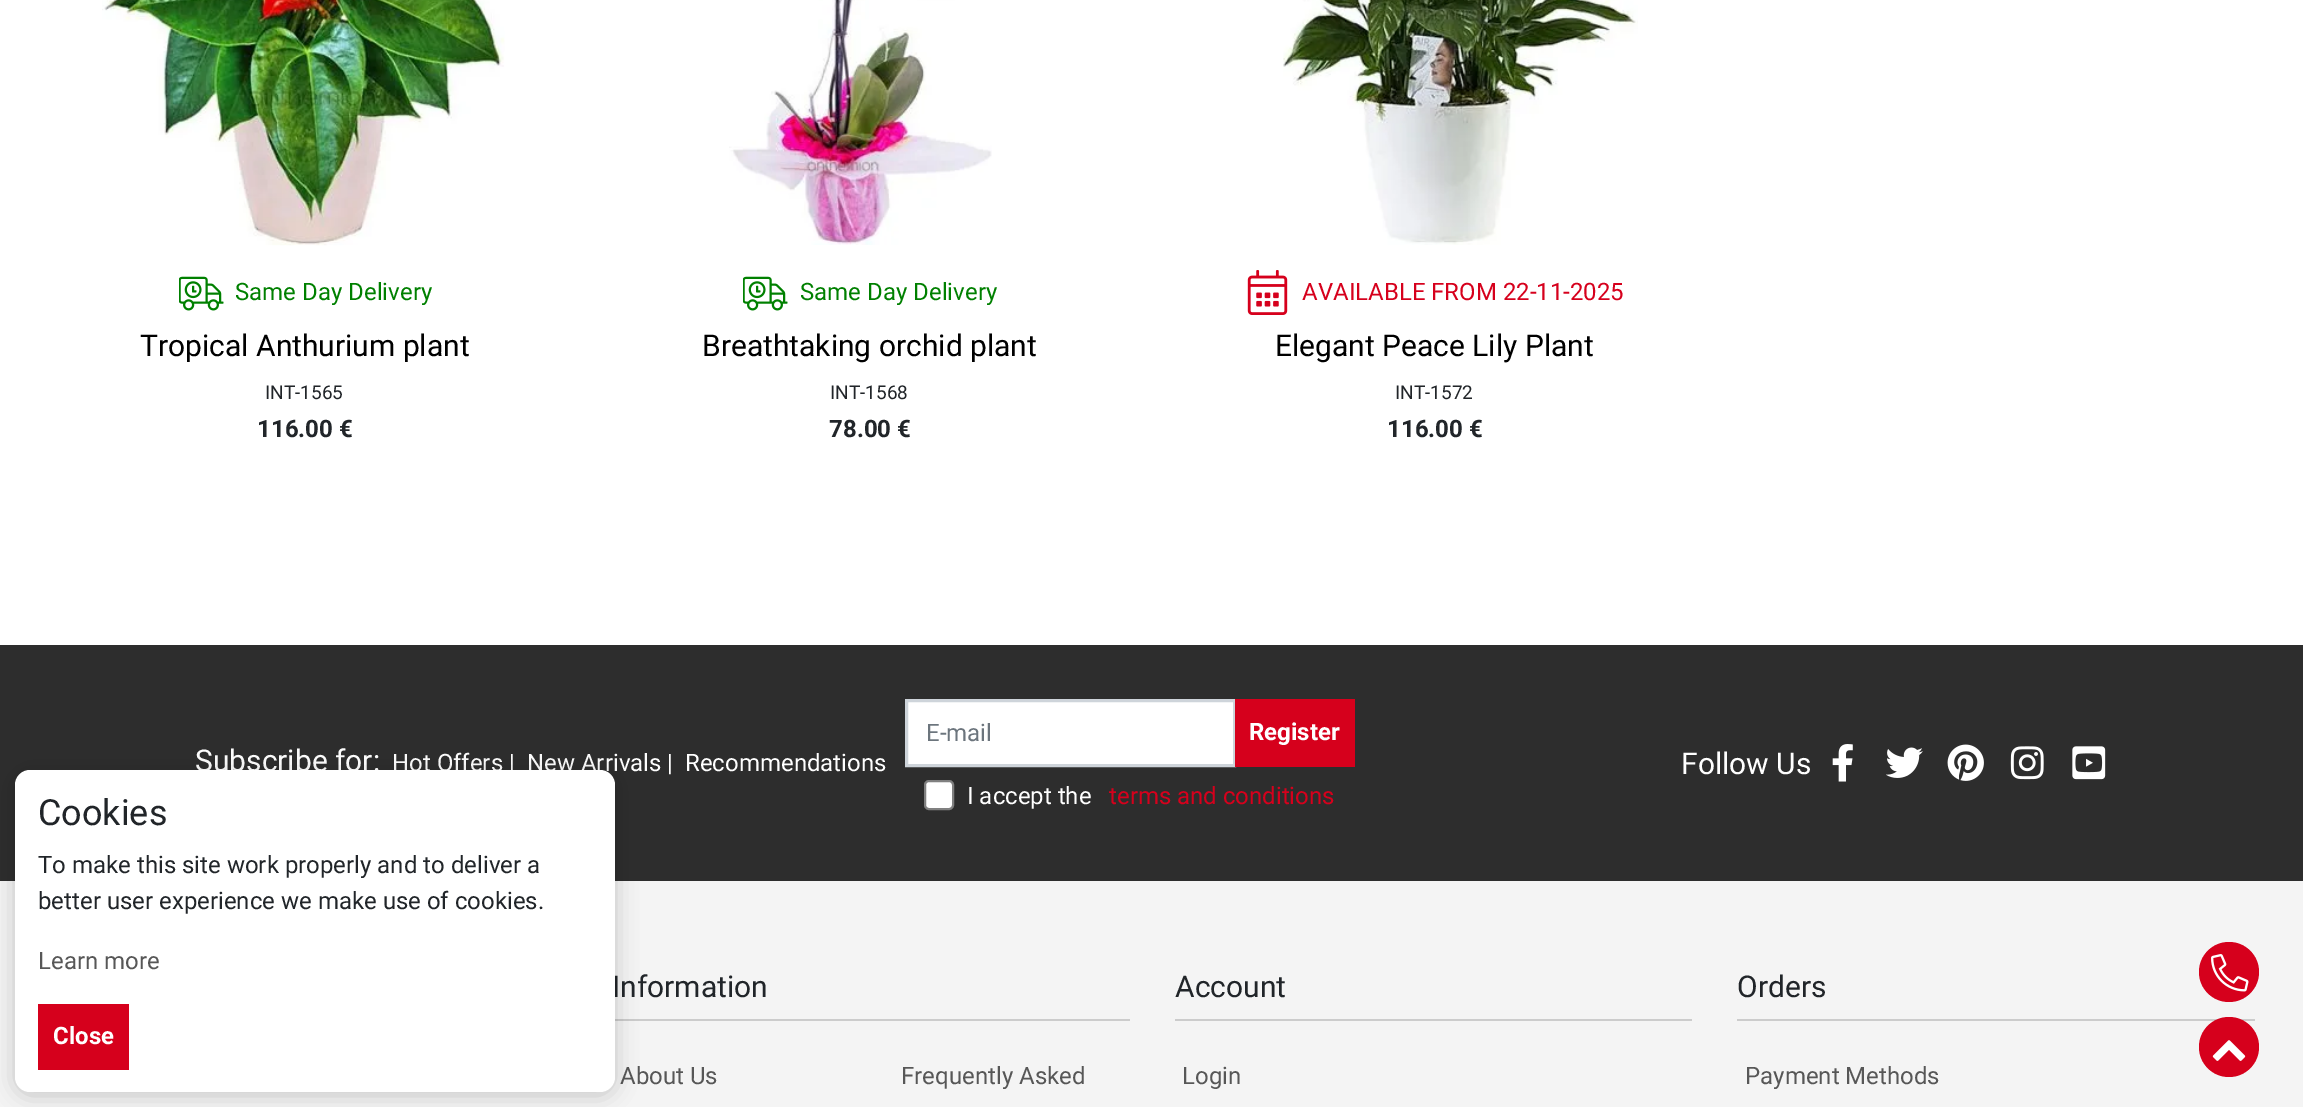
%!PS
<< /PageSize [2303 1107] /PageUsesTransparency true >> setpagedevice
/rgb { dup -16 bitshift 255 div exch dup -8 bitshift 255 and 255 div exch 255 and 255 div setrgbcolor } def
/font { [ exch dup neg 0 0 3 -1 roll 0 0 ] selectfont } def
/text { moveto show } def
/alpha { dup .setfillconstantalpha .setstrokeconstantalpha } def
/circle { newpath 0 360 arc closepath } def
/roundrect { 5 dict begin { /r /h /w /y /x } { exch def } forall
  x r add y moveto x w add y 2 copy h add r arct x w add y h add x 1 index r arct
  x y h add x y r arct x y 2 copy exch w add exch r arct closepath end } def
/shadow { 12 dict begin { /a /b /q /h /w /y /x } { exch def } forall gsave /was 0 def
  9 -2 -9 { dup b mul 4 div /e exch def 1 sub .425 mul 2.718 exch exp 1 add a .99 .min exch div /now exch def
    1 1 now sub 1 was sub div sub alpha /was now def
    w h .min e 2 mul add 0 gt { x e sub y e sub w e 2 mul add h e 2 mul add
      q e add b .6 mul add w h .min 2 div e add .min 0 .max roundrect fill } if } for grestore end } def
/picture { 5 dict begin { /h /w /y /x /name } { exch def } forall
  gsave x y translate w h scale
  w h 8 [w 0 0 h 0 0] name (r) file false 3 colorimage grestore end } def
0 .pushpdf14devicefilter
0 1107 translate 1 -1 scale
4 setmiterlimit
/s1 { /Roboto-Regular 24 font 16#008000 rgb } def
/s2 { /Roboto-Regular 30 font 16#000000 rgb } def
/s3 { /Roboto-Regular 19 font 16#212529 rgb } def
/s4 { /Roboto-Bold 24 font 16#212529 rgb } def
/s5 { /Roboto-Regular 24 font 16#D6001C rgb } def
/s6 { /Roboto-Regular 30 font 16#FFFFFF rgb } def
/s7 { /Roboto-Regular 24 font 16#FFFFFF rgb } def
/s8 { /Roboto-Regular 24 font 16#6C757D rgb } def
/s9 { /Roboto-Bold 24 font 16#FFFFFF rgb } def
/s10 { /Roboto-Regular 30 font 16#212529 rgb } def
/s11 { /Roboto-Regular 24 font 16#575757 rgb } def
/s12 { /Roboto-Regular 36 font 16#212529 rgb } def
/s13 { /Roboto-Regular 24 font 16#212529 rgb } def
16#FFFFFF rgb
0 0 2303 1107 rectfill
(pic1.raw) 102 0 403 246 picture
(pic2.raw) 179 276 45 35 picture
s1
(Same Day Delivery) 235 300 text
s2
(Tropical Anthurium plant) 140 356 text
s3
(INT-1565) 265 399 text
s4
(116.00 €) 257 437 text
(pic3.raw) 729 0 263 245 picture
(pic2.raw) 743 276 45 35 picture
s1
(Same Day Delivery) 800 300 text
s2
(Breathtaking orchid plant) 702 356 text
s3
(INT-1568) 830 399 text
s4
(78.00 €) 829 437 text
(pic4.raw) 1283 0 355 245 picture
(pic5.raw) 1247 270 41 45 picture
s5
(AVAILABLE FROM 22-11-2025) 1302 300 text
s2
(Elegant Peace Lily Plant) 1275 356 text
s3
(INT-1572) 1395 399 text
s4
(116.00 €) 1387 437 text
16#2D2D2D rgb
0 645 2303 236 rectfill
s6
(Subscribe for:) 195 771 text
s7
(Hot Offers |) 392 771 text
(New Arrivals |) 527 771 text
(Recommendations) 685 771 text
906.5 700.5 moveto 1234.5 700.5 lineto 1234.5 765.5 lineto 906.5 765.5 lineto closepath gsave fill grestore
16#CED4DA rgb
3 setlinewidth
stroke
s8
(E-mail) 926 741 text
16#D6001C rgb
1235 699 120 68 rectfill
s9
(Register) 1249 740 text
925 781 28 28 4 roundrect gsave fill grestore
16#808080 rgb
2 setlinewidth
stroke
s7
(I accept the) 967 804 text
s5
(terms and conditions) 1109 804 text
s6
(Follow Us) 1681 774 text
(pic6.raw) 1832 744 21 38 picture
(pic7.raw) 1886 747 37 31 picture
(pic8.raw) 1947 744 37 37 picture
(pic9.raw) 2010 746 34 34 picture
(pic10.raw) 2072 746 34 34 picture
16#F4F4F4 rgb
0 881 2303 226 rectfill
16#CCCCCC rgb
612 1019 518 2 rectfill
s10
(Information) 612 997 text
s11
(About Us) 620 1084 text
(Frequently Asked) 901 1084 text
16#CCCCCC rgb
1175 1019 517 2 rectfill
s10
(Account) 1175 997 text
s11
(Login) 1182 1084 text
16#CCCCCC rgb
1737 1019 518 2 rectfill
s10
(Orders) 1737 997 text
s11
(Payment Methods) 1745 1084 text
16#000000 rgb
15 773 600 322 15 11 0.2 shadow
16#FFFFFF rgb
15 770 600 322 15 roundrect fill
s12
(Cookies) 38 825 text
s13
(To make this site work properly and to deliver a) 38 873 text
(better user experience we make use of cookies.) 38 909 text
s11
(Learn more) 38 969 text
16#D6001C rgb
38 1004 91 66 rectfill
s9
(Close) 53 1044 text
16#D6001C rgb
2229 972 30 circle fill
(pic11.raw) 2211 954 38 38 picture
2229 1047 30 circle fill
(pic12.raw) 2212 1040 34 21 picture
.poppdf14devicefilter showpage
